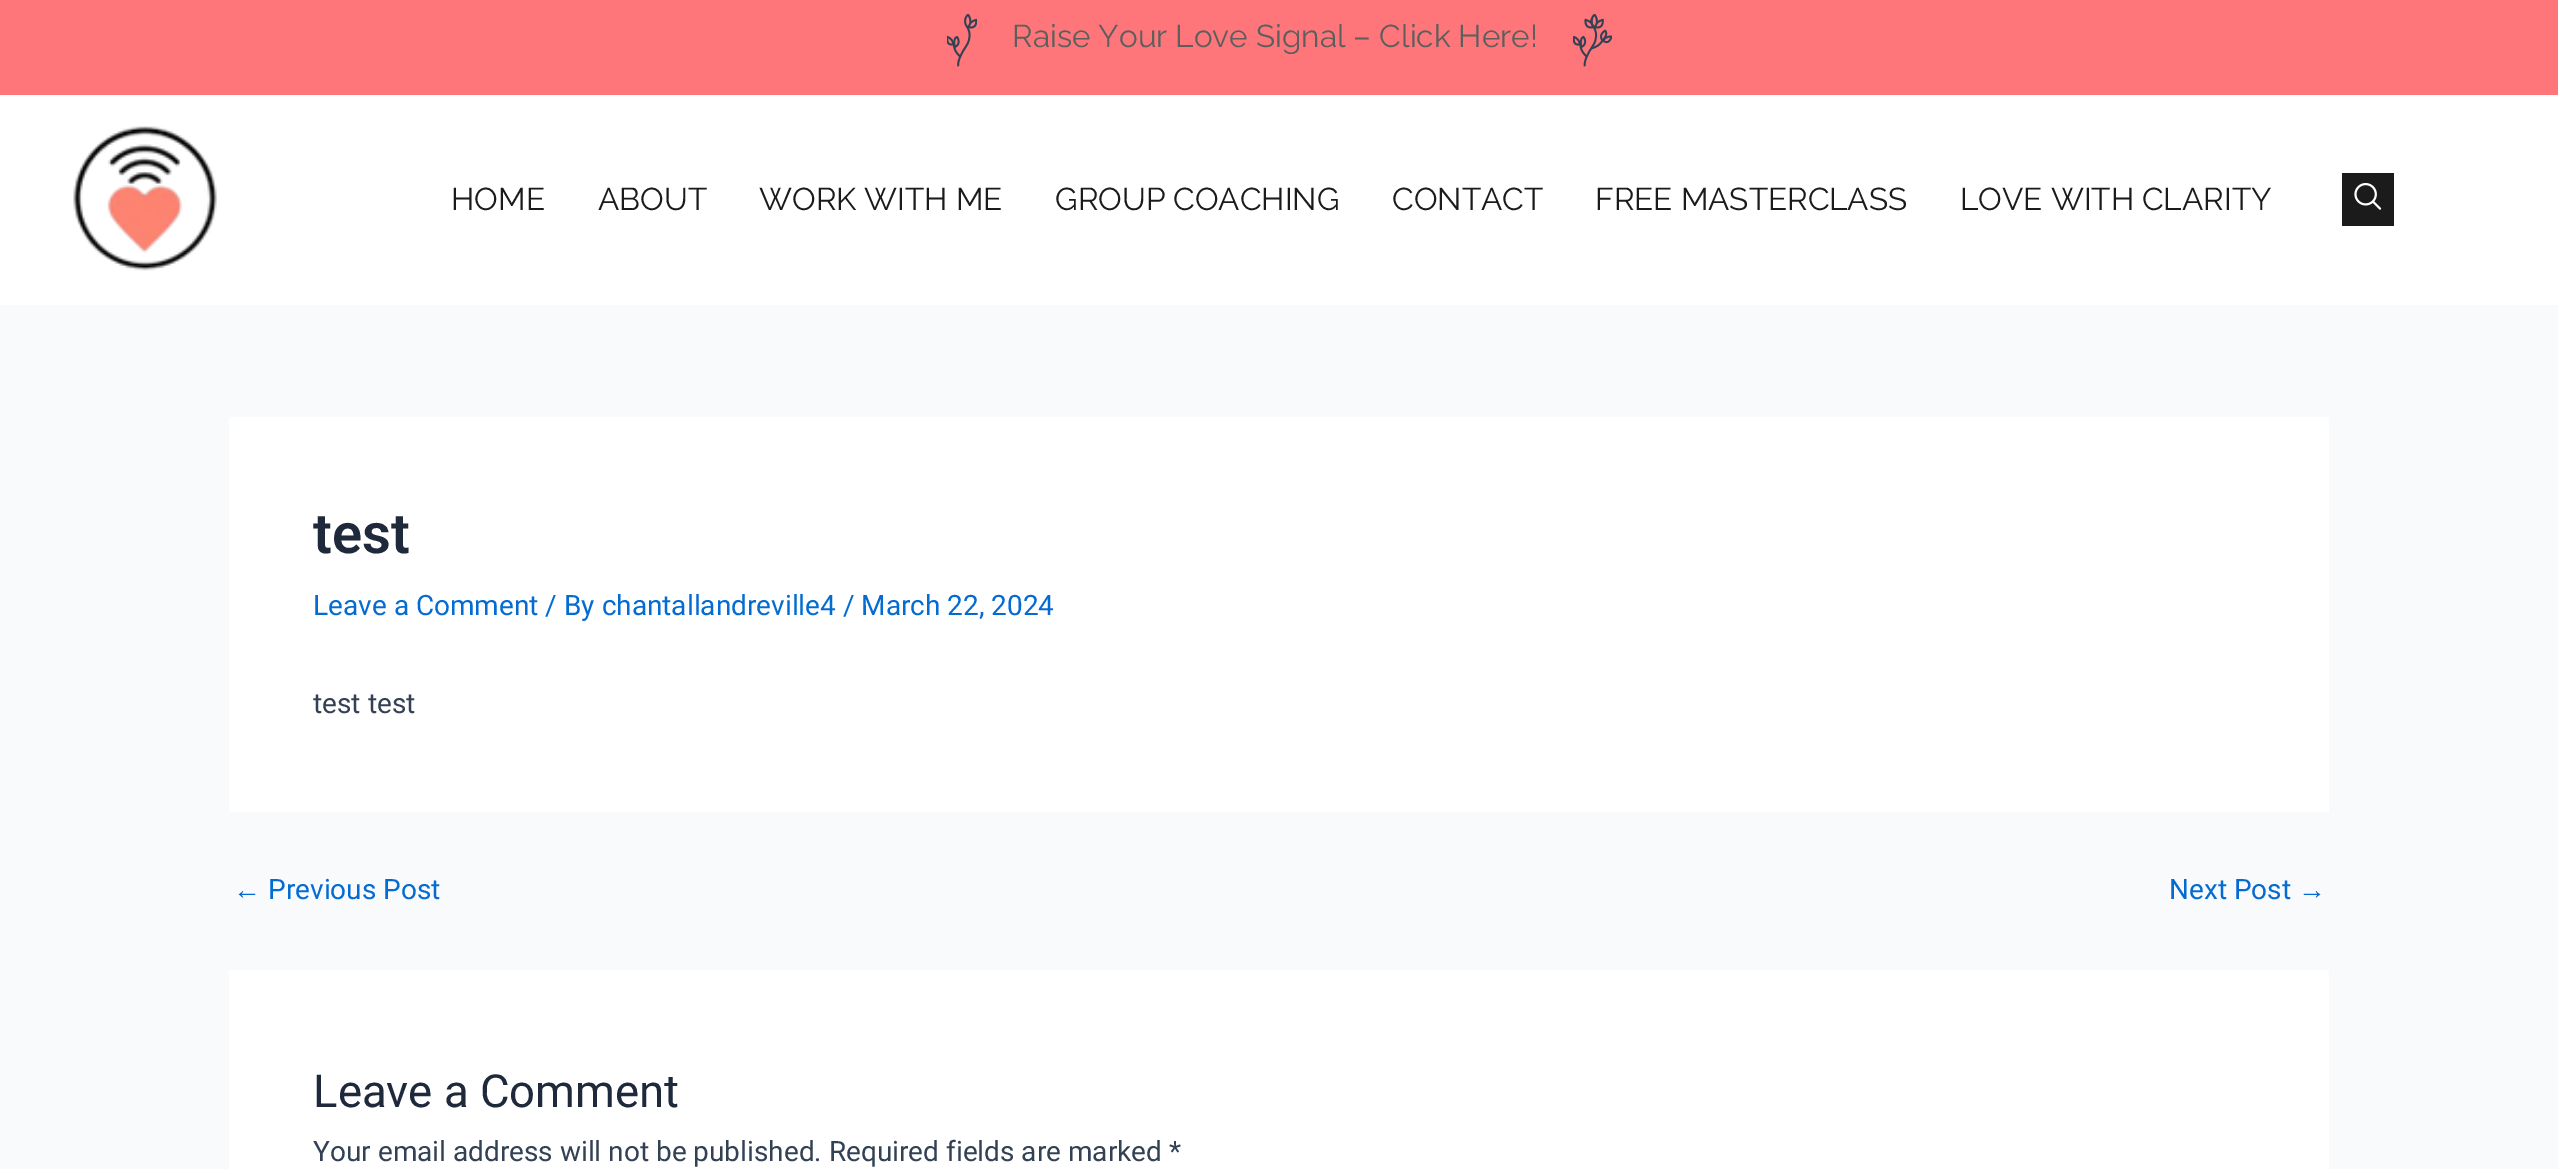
%!PS
<< /PageSize [2558 1169] >> setpagedevice
/rgb { dup -16 bitshift 255 div exch dup -8 bitshift 255 and 255 div exch 255 and 255 div setrgbcolor } def
/font { [ exch dup neg 0 0 3 -1 roll 0 0 ] selectfont } def
/text { moveto show } def
/picture { 5 dict begin { /h /w /y /x /name } { exch def } forall
  gsave x y translate w h scale
  w h 8 [w 0 0 h 0 0] name (r) file false 3 colorimage grestore end } def
0 1169 translate 1 -1 scale
4 setmiterlimit
/s1 { /Raleway-Regular 31.5 font 16#5E5E5E rgb } def
/s2 { /Raleway-Regular 31.5 font 16#1B1B1B rgb } def
/s3 { /Roboto-SemiBold 56 font 16#1E293B rgb } def
/s4 { /Roboto-Regular 28 font 16#046BD2 rgb } def
/s5 { /Roboto-Regular 28 font 16#334155 rgb } def
/s6 { /LiberationSans-Regular 28 font 16#046BD2 rgb } def
/s7 { /Roboto-Regular 45.5 font 16#1E293B rgb } def
16#F9FAFB rgb
0 0 2558 1169 rectfill
16#FF767A rgb
0 0 2558 95 rectfill
(pic1.raw) 947 14 30 53 picture
s1
(Raise Your Love Signal – Click Here!) 1012 47 text
(pic2.raw) 1573 14 39 53 picture
16#FFFFFF rgb
0 95 2558 210 rectfill
(pic3.raw) 73 126 144 145 picture
s2
(HOME) 451 210 text
(ABOUT) 598 210 text
(WORK WITH ME) 759 210 text
(GROUP COACHING) 1055 210 text
(CONTACT) 1392 210 text
(FREE MASTERCLASS) 1595 210 text
(LOVE WITH CLARITY) 1960 210 text
2342 173 52 53 rectfill
(pic4.raw) 2354 183 28 27 picture
16#FFFFFF rgb
229 417 2100 395 rectfill
s3
(test) 313 553 text
s4
(Leave a Comment / By chantallandreville4 / March 22, 2024) 313 615 text
s5
(test test) 313 713 text
s6
(←) 233 899 text
s4
(Previous Post) 268 899 text
(Next Post) 2169 899 text
s6
(→) 2298 899 text
16#FFFFFF rgb
229 970 2100 199 rectfill
s7
(Leave a Comment) 313 1107 text
s5
(Your email address will not be published. Required fields are marked *) 313 1161 text
showpage
